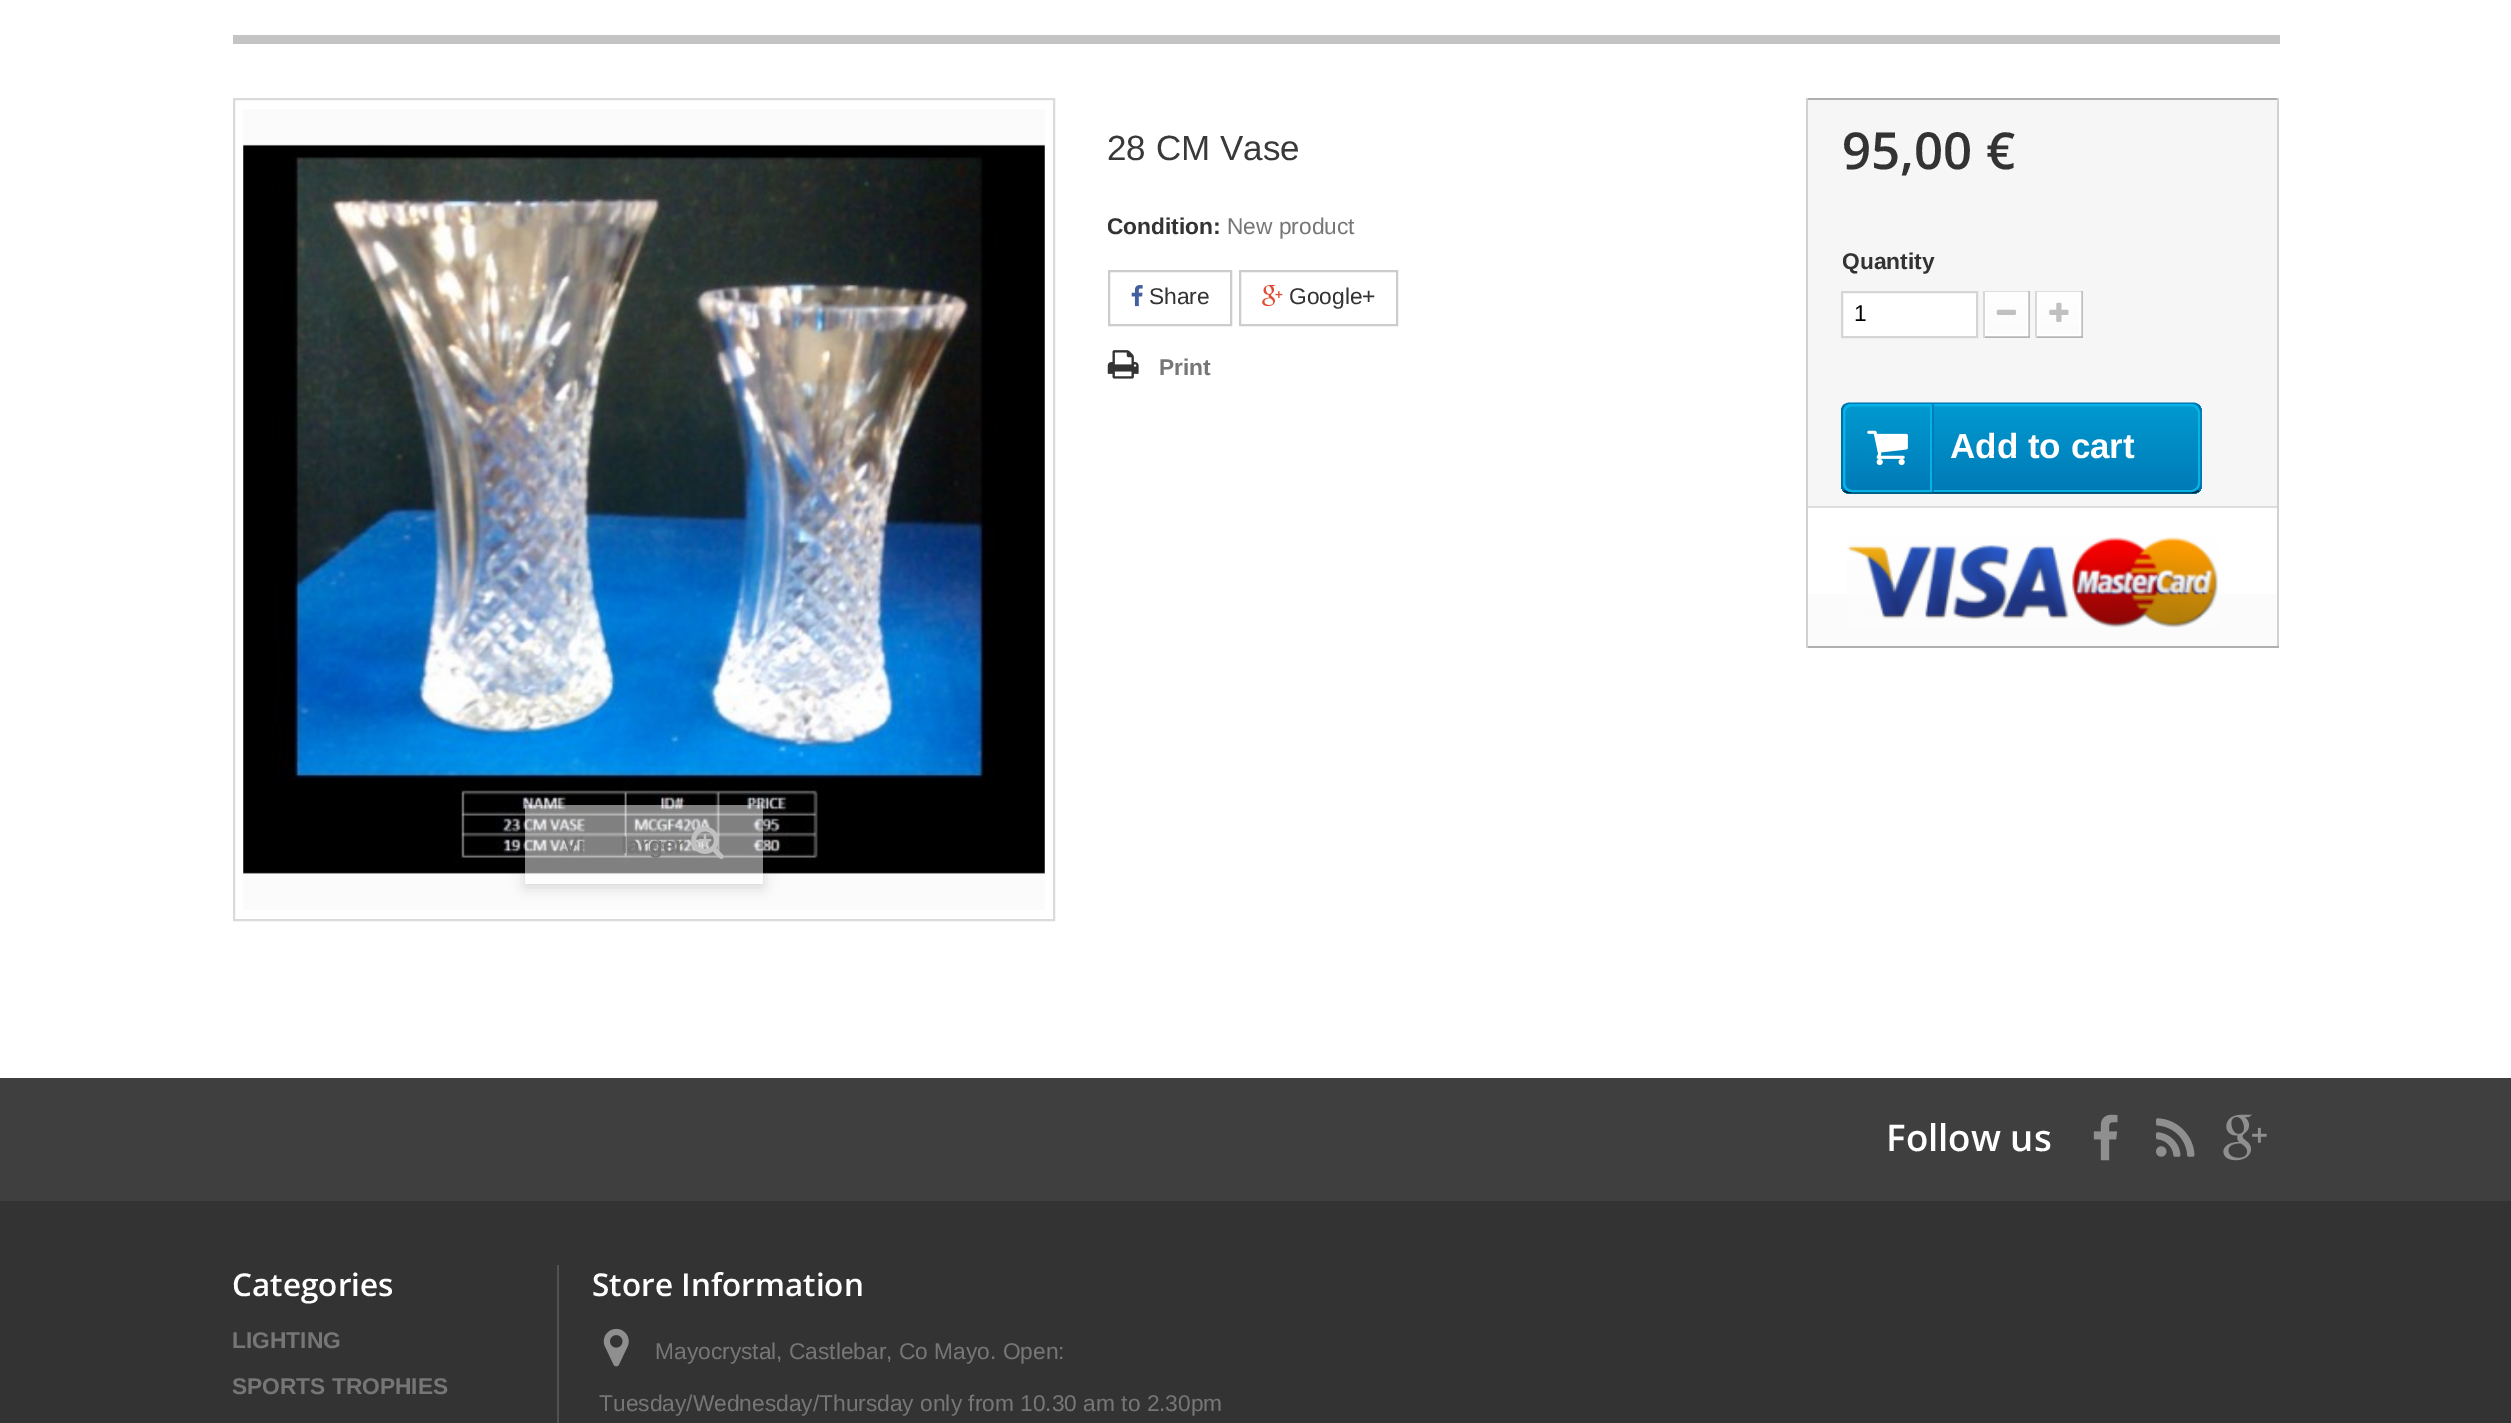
%!PS
<< /PageSize [2511 1423] /PageUsesTransparency true >> setpagedevice
/rgb { dup -16 bitshift 255 div exch dup -8 bitshift 255 and 255 div exch 255 and 255 div setrgbcolor } def
/font { [ exch dup neg 0 0 3 -1 roll 0 0 ] selectfont } def
/text { moveto show } def
/alpha { dup .setfillconstantalpha .setstrokeconstantalpha } def
/roundrect { 5 dict begin { /r /h /w /y /x } { exch def } forall
  x r add y moveto x w add y 2 copy h add r arct x w add y h add x 1 index r arct
  x y h add x y r arct x y 2 copy exch w add exch r arct closepath end } def
/shadow { 12 dict begin { /a /b /q /h /w /y /x } { exch def } forall gsave /was 0 def
  9 -2 -9 { dup b mul 4 div /e exch def 1 sub .425 mul 2.718 exch exp 1 add a .99 .min exch div /now exch def
    1 1 now sub 1 was sub div sub alpha /was now def
    w h .min e 2 mul add 0 gt { x e sub y e sub w e 2 mul add h e 2 mul add
      q e add b .6 mul add w h .min 2 div e add .min 0 .max roundrect fill } if } for grestore end } def
/picture { 5 dict begin { /h /w /y /x /name } { exch def } forall
  gsave x y translate w h scale
  w h 8 [w 0 0 h 0 0] name (r) file false 3 colorimage grestore end } def
0 .pushpdf14devicefilter
0 1423 translate 1 -1 scale
4 setmiterlimit
/s1 { /LiberationSans-Regular 35 font 16#3A3939 rgb } def
/s2 { /LiberationSans-Bold 22.75 font 16#333333 rgb } def
/s3 { /LiberationSans-Regular 22.75 font 16#777676 rgb } def
/s4 { /LiberationSans-Regular 22.75 font 16#333333 rgb } def
/s5 { /LiberationSans-Bold 22.75 font 16#777676 rgb } def
/s6 { /OpenSans-SemiBold 51 font 16#333333 rgb } def
/s7 { /LiberationSans-Regular 22.75 font 16#000000 rgb } def
/s8 { /LiberationSans-Bold 35 font 16#FFFFFF rgb } def
/s9 { /OpenSans-SemiBold 36.75 font 16#FFFFFF rgb } def
/s10 { /OpenSans-SemiBold 31.5 font 16#FFFFFF rgb } def
16#FFFFFF rgb
0 0 2511 1423 rectfill
16#C4C4C4 rgb
233 35 2047 9 rectfill
s1
(28 CM Vase) 1107 160 text
s2
(Condition:) 1107 234 text
s3
(New product) 1227 234 text
16#CCCCCC rgb
2 setlinewidth
1109 271 122 54 rectstroke
(pic1.raw) 1131 285 12 22 picture
s4
(Share) 1149 304 text
16#CCCCCC rgb
1240 271 157 54 rectstroke
(pic2.raw) 1262 285 21 22 picture
s4
(Google+) 1289 304 text
(pic3.raw) 1107 350 32 29 picture
s5
(Print) 1159 375 text
16#F6F6F6 rgb
1808 100 469 406 rectfill
16#B0AFAF rgb
1806 98 473 2 rectfill
16#D2D0D0 rgb
2277 98 2 550 rectfill
16#B0AFAF rgb
1806 646 473 2 rectfill
16#D2D0D0 rgb
1806 98 2 550 rectfill
s6
(95,00 €) 1842 169 text
s2
(Quantity) 1842 269 text
16#FFFFFF rgb
1842 292 moveto 1977 292 lineto 1977 337 lineto 1842 337 lineto closepath gsave fill grestore
16#D6D4D4 rgb
stroke
s7
(1) 1854 321 text
16#DEDCDC rgb
1983 291 47 1 rectfill
16#C1BFBF rgb
2028 291 2 47 rectfill
16#B5B4B4 rgb
1983 336 47 2 rectfill
16#DAD8D8 rgb
1983 291 2 47 rectfill
gsave 1987 294 moveto 2026 294 lineto 2026 334 lineto 1987 334 lineto closepath clip newpath
<< /ShadingType 2 /ColorSpace /DeviceRGB /Coords [2006 294 2006 334] /Extend [true true] /Function << /FunctionType 2 /Domain [0 1] /C0 [1 1 1] /C1 [0.984 0.984 0.984] /N 1 >> >> shfill grestore
16#FFFFFF rgb
1986 293 41 42 rectstroke
(pic4.raw) 1996 309 20 6 picture
16#DEDCDC rgb
2035 291 48 1 rectfill
16#C1BFBF rgb
2081 291 2 47 rectfill
16#B5B4B4 rgb
2035 336 48 2 rectfill
16#DAD8D8 rgb
2035 291 2 47 rectfill
gsave 2039 294 moveto 2079 294 lineto 2079 334 lineto 2039 334 lineto closepath clip newpath
<< /ShadingType 2 /ColorSpace /DeviceRGB /Coords [2059 294 2059 334] /Extend [true true] /Function << /FunctionType 2 /Domain [0 1] /C0 [1 1 1] /C1 [0.984 0.984 0.984] /N 1 >> >> shfill grestore
16#FFFFFF rgb
2038 293 42 42 rectstroke
(pic5.raw) 2049 302 20 20 picture
gsave
1841 403 361 91 9 roundrect clip newpath
gsave 1841 404 moveto 2202 404 lineto 2202 492 lineto 1841 492 lineto closepath clip newpath
<< /ShadingType 2 /ColorSpace /DeviceRGB /Coords [2021 404 2021 492] /Extend [true true] /Function << /FunctionType 2 /Domain [0 1] /C0 [0 0.604 0.816] /C1 [0 0.478 0.718] /N 1 >> >> shfill grestore
gsave 1841 492 moveto 2202 492 lineto 2202 494 lineto 1841 494 lineto closepath clip newpath
<< /ShadingType 2 /ColorSpace /DeviceRGB /Coords [2021 492 2021 579] /Extend [true true] /Function << /FunctionType 2 /Domain [0 1] /C0 [0 0.604 0.816] /C1 [0 0.478 0.718] /N 1 >> >> shfill grestore
grestore
16#0079B6 rgb
1.8 setlinewidth
1844 405.5 moveto 1845.5 404 1847.5 403.5 1850 403.5 curveto 2193 403.5 lineto 2195 403.5 2197 404 2198.5 405.5 curveto stroke
16#006FA8 rgb
2198.5 405.5 moveto 2200 407 2200.5 409 2200.5 411 curveto 2200.5 485 lineto 2200.5 487 2200 489 2198.5 490.5 curveto stroke
16#012740 rgb
2198.5 490.5 moveto 2197 492 2195 492.5 2193 492.5 curveto 1850 492.5 lineto 1847.5 492.5 1845.5 492 1844 490.5 curveto stroke
16#006FA8 rgb
1844 490.5 moveto 1842.5 489 1842 487 1842 485 curveto 1842 411 lineto 1842 409 1842.5 407 1844 405.5 curveto stroke
16#06B2E6 rgb
2 setlinewidth
1844 405 355 86 8 roundrect stroke
1852 405 moveto 1931 405 lineto 1931 491 lineto 1852 491 lineto 1847.5 491 1844 487.5 1844 483 curveto 1844 413 lineto 1844 408.5 1847.5 405 1852 405 curveto closepath stroke
(pic6.raw) 1867 430 41 36 picture
(pic7.raw) 1932 404 2 88 picture
s8
(Add to cart) 1950 458 text
gsave 1808 594 moveto 2277 594 lineto 2277 646 lineto 1808 646 lineto closepath clip newpath
<< /ShadingType 2 /ColorSpace /DeviceRGB /Coords [2042 508 2042 646] /Extend [true true] /Function << /FunctionType 2 /Domain [0 1] /C0 [1 1 1] /C1 [0.984 0.984 0.984] /N 1 >> >> shfill grestore
16#DFDEDE rgb
1808 506 469 2 rectfill
(pic8.raw) 1847 537 371 91 picture
16#DBDBDB rgb
234 99 820 821 rectstroke
16#FBFBFB rgb
243 109 802 801 rectfill
(pic9.raw) 243 144 802 730 picture
gsave
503 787 moveto 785 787 lineto 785 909 lineto 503 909 lineto closepath 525 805 moveto 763 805 lineto 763 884 lineto 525 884 lineto closepath eoclip newpath
16#000000 rgb
525 809 238 78 0 7 0.16 shadow
grestore
0.5 alpha
16#FFFFFF rgb
525 805 238 79 rectfill
1 alpha
s5
(Vi) 563 853 text
(larger) 621 853 text
(pic10.raw) 691 826 33 33 picture
16#333333 rgb
0 1201 2511 222 rectfill
16#3F3F3F rgb
0 1078 2511 123 rectfill
s9
(Follow us) 1886 1151 text
(pic11.raw) 2093 1114 25 47 picture
(pic12.raw) 2156 1118 39 39 picture
(pic13.raw) 2223 1114 44 47 picture
s10
(Categories) 232 1296 text
s5
(LIGHTING) 232 1348 text
(SPORTS TROPHIES) 232 1394 text
16#515151 rgb
557 1265 2 158 rectfill
s10
(Store Information) 592 1296 text
(pic14.raw) 603 1328 26 39 picture
s3
(Mayocrystal, Castlebar, Co Mayo. Open:) 655 1359 text
(Tuesday/Wednesday/Thursday only from 10.30 am to 2.30pm) 599 1411 text
.poppdf14devicefilter showpage
